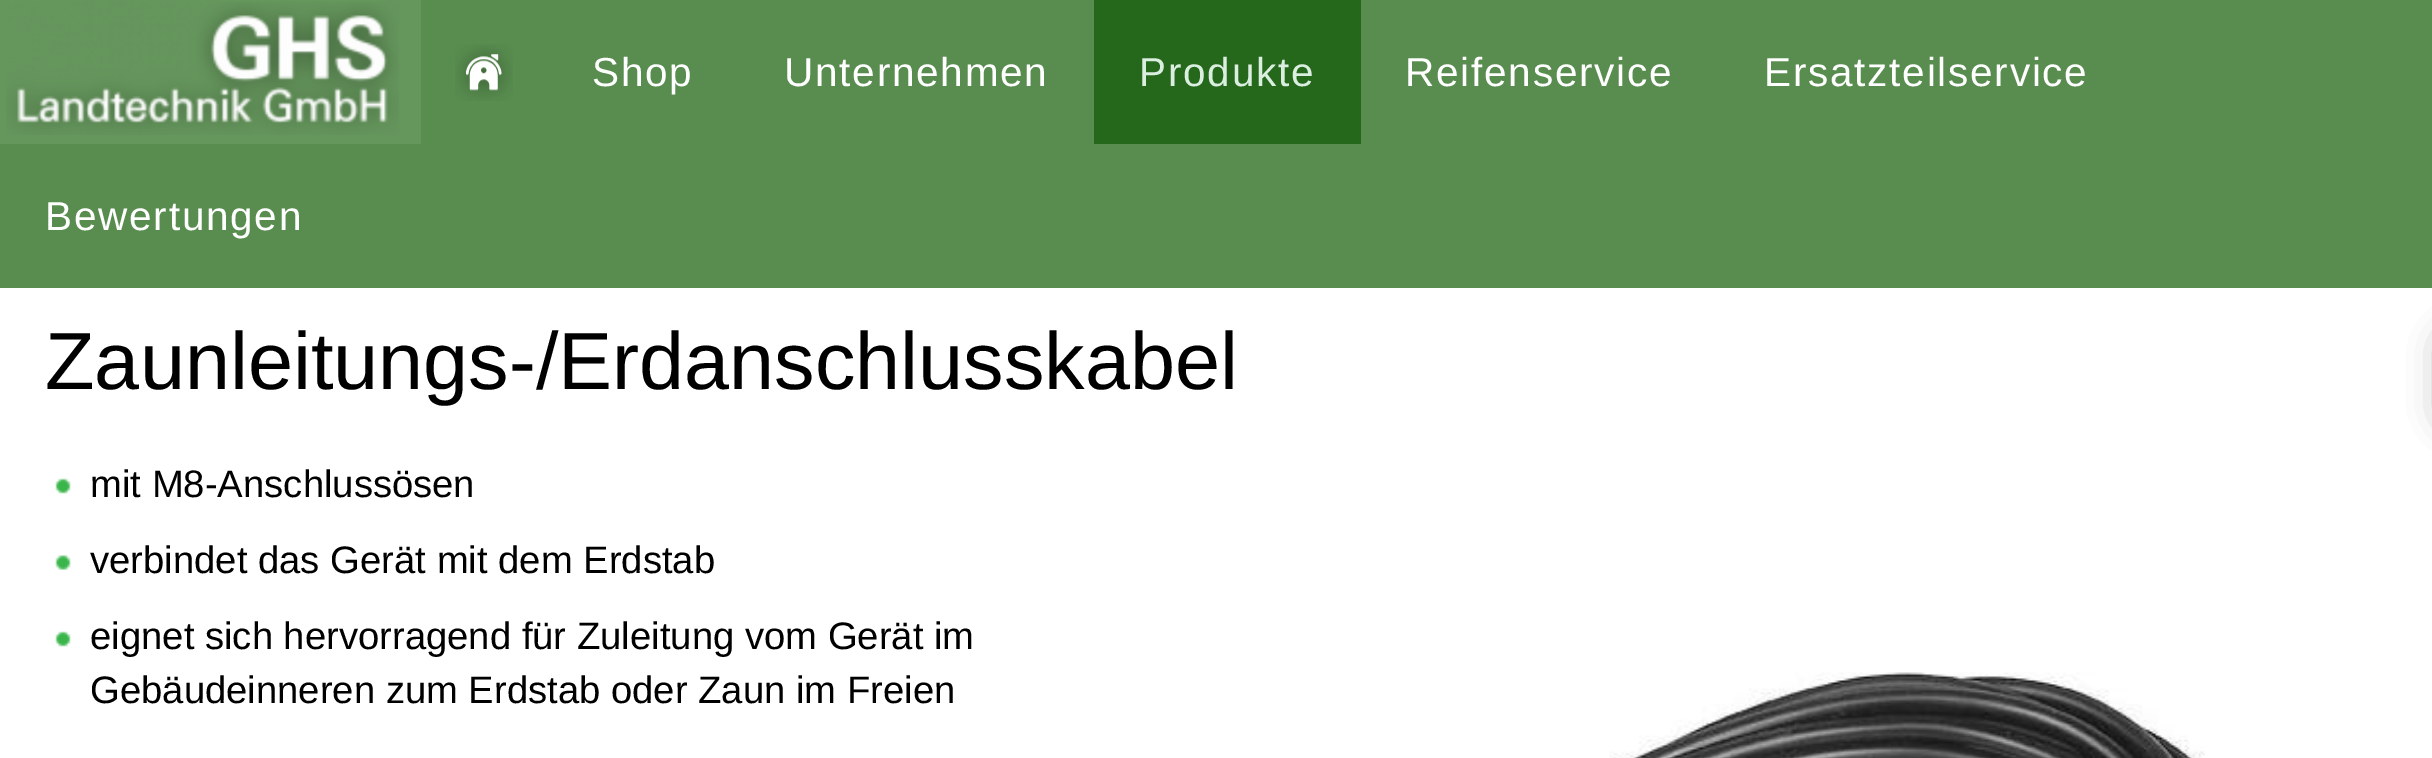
%!PS
<< /PageSize [2432 758] /PageUsesTransparency true >> setpagedevice
/rgb { dup -16 bitshift 255 div exch dup -8 bitshift 255 and 255 div exch 255 and 255 div setrgbcolor } def
/font { [ exch dup neg 0 0 3 -1 roll 0 0 ] selectfont } def
/text { moveto show } def
/alpha { dup .setfillconstantalpha .setstrokeconstantalpha } def
/roundrect { 5 dict begin { /r /h /w /y /x } { exch def } forall
  x r add y moveto x w add y 2 copy h add r arct x w add y h add x 1 index r arct
  x y h add x y r arct x y 2 copy exch w add exch r arct closepath end } def
/shadow { 12 dict begin { /a /b /q /h /w /y /x } { exch def } forall gsave /was 0 def
  9 -2 -9 { dup b mul 4 div /e exch def 1 sub .425 mul 2.718 exch exp 1 add a .99 .min exch div /now exch def
    1 1 now sub 1 was sub div sub alpha /was now def
    w h .min e 2 mul add 0 gt { x e sub y e sub w e 2 mul add h e 2 mul add
      q e add b .6 mul add w h .min 2 div e add .min 0 .max roundrect fill } if } for grestore end } def
/picture { 5 dict begin { /h /w /y /x /name } { exch def } forall
  gsave x y translate w h scale
  w h 8 [w 0 0 h 0 0] name (r) file false 3 colorimage grestore end } def
0 .pushpdf14devicefilter
0 758 translate 1 -1 scale
4 setmiterlimit
/s1 { /LiberationSans-Regular 81 font 16#000000 rgb } def
/s2 { /LiberationSans-Regular 38.25 font 16#000000 rgb } def
16#FFFFFF rgb
0 0 2432 758 rectfill
16#588D4F rgb
0 0 2432 288 rectfill
16#65965C rgb
0 0 421 144 rectfill
(pic1.raw) 6 2 393 133 picture
(pic2.raw) 455 44 58 57 picture
/LiberationSans-Regular 40.5 font
16#FFFFFF rgb
592 86 moveto 1.75 0 (Shop) ashow
784 86 moveto 1.75 0 (Unternehmen) ashow
16#25671B rgb
1094 0 267 144 rectfill
16#DBEFE0 rgb
1139 86 moveto 1.75 0 (Produkte) ashow
16#FFFFFF rgb
1405 86 moveto 1.75 0 (Reifenservice) ashow
1764 86 moveto 1.75 0 (Ersatzteilservice) ashow
45 230 moveto 1.75 0 (Bewertungen) ashow
s1
(Zaunleitungs-/Erdanschlusskabel) 45 389 text
(pic3.raw) 55 478 16 16 picture
s2
(mit M8-Anschlussösen) 90 497 text
(pic4.raw) 55 555 16 15 picture
(verbindet das Gerät mit dem Erdstab) 90 573 text
(pic3.raw) 55 631 16 16 picture
(eignet sich hervorragend für Zuleitung vom Gerät im) 90 649 text
(Gebäudeinneren zum Erdstab oder Zaun im Freien) 90 703 text
(pic5.raw) 1609 672 596 86 picture
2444 333 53 92 14 17 0.4 shadow
.poppdf14devicefilter showpage
